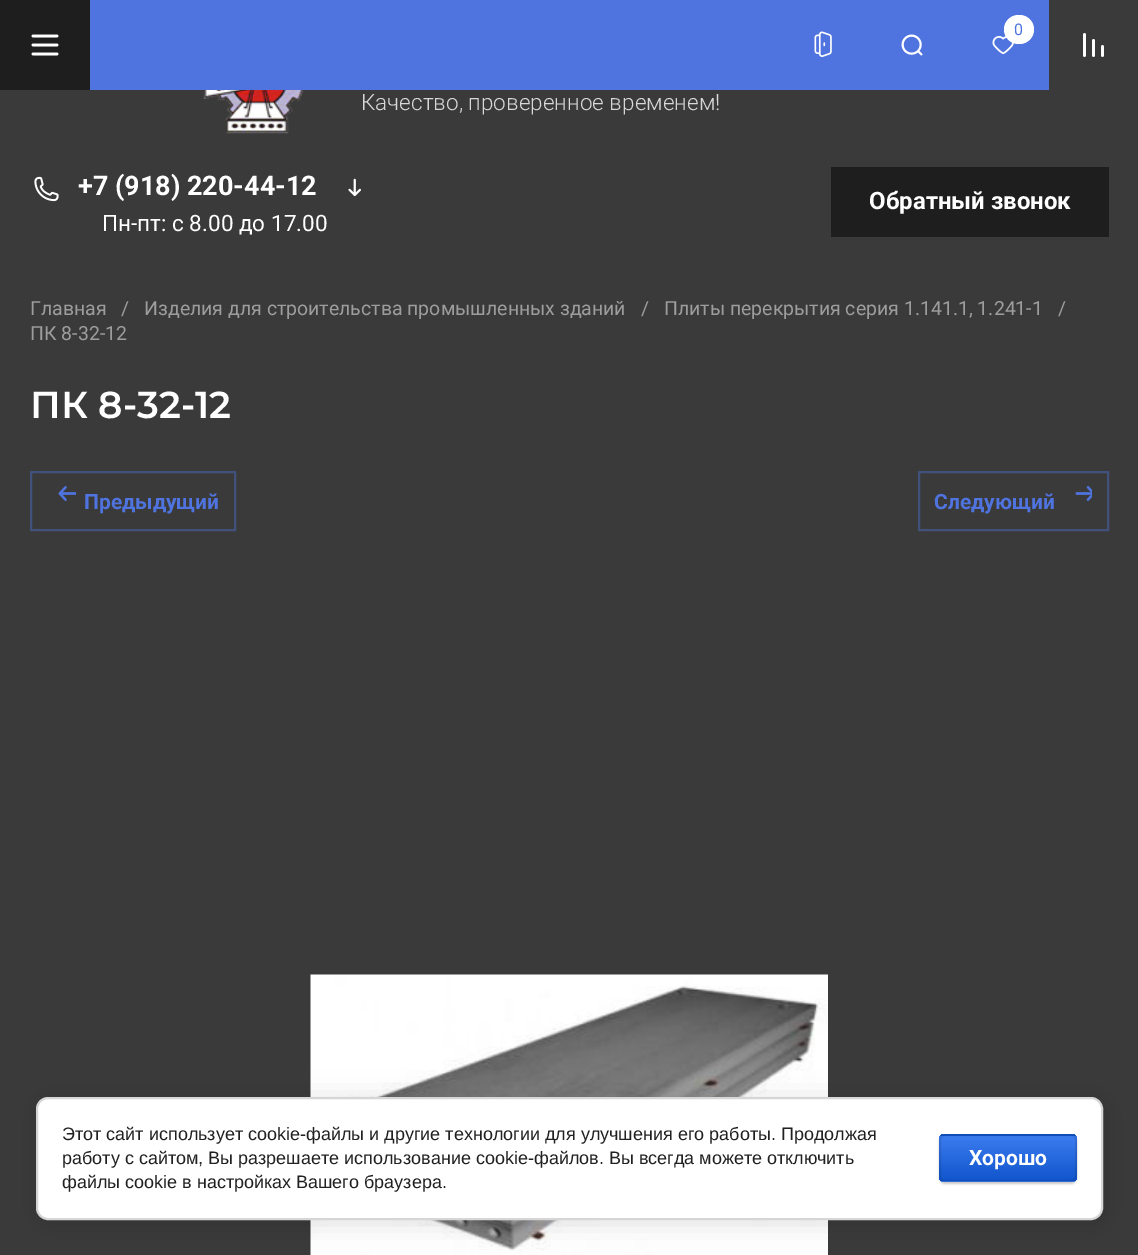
%!PS
<< /PageSize [1138 1255] /PageUsesTransparency true >> setpagedevice
/rgb { dup -16 bitshift 255 div exch dup -8 bitshift 255 and 255 div exch 255 and 255 div setrgbcolor } def
/font { [ exch dup neg 0 0 3 -1 roll 0 0 ] selectfont } def
/text { moveto show } def
/alpha { dup .setfillconstantalpha .setstrokeconstantalpha } def
/roundrect { 5 dict begin { /r /h /w /y /x } { exch def } forall
  x r add y moveto x w add y 2 copy h add r arct x w add y h add x 1 index r arct
  x y h add x y r arct x y 2 copy exch w add exch r arct closepath end } def
/shadow { 12 dict begin { /a /b /q /h /w /y /x } { exch def } forall gsave /was 0 def
  9 -2 -9 { dup b mul 4 div /e exch def 1 sub .425 mul 2.718 exch exp 1 add a .99 .min exch div /now exch def
    1 1 now sub 1 was sub div sub alpha /was now def
    w h .min e 2 mul add 0 gt { x e sub y e sub w e 2 mul add h e 2 mul add
      q e add b .6 mul add w h .min 2 div e add .min 0 .max roundrect fill } if } for grestore end } def
/picture { 5 dict begin { /h /w /y /x /name } { exch def } forall
  gsave x y translate w h scale
  w h 8 [w 0 0 h 0 0] name (r) file false 3 colorimage grestore end } def
0 .pushpdf14devicefilter
0 1255 translate 1 -1 scale
4 setmiterlimit
/s1 { /Roboto-Regular 16 font 16#4F73DF rgb } def
/s2 { /Roboto-Light 22.5 font 16#D8D8D8 rgb } def
/s3 { /Roboto-Bold 27 font 16#FFFFFF rgb } def
/s4 { /Roboto-Regular 22.5 font 16#FFFFFF rgb } def
/s5 { /Roboto-Bold 24 font 16#FFFFFF rgb } def
/s6 { /Roboto-Regular 19.5 font 16#9D9D9D rgb } def
/s7 { /Montserrat-SemiBold 37.5 font 16#FFFFFF rgb } def
/s8 { /Roboto-Bold 21 font 16#4F73DF rgb } def
/s9 { /LiberationSans-Regular 18 font 16#212121 rgb } def
/s10 { /Roboto-Bold 21 font 16#FFFFFF rgb } def
16#3A3A3A rgb
0 0 1138 1255 rectfill
16#4F73DF rgb
90 0 959 90 rectfill
16#1E1E1E rgb
0 0 90 90 rectfill
(pic1.raw) 31 34 28 22 picture
(pic2.raw) 992 36 22 18 picture
16#FFFFFF rgb
1004 15 30 29 14.5 roundrect fill
s1
(0) 1014 35 text
(pic3.raw) 814 31 18 26 picture
(pic4.raw) 901 34 22 22 picture
(pic5.raw) 1083 33 21 24 picture
(pic6.raw) 203 90 101 44 picture
s2
(Качество, проверенное временем!) 361 110 text
(pic7.raw) 34 176 25 26 picture
s3
(+7 \(918\) 220-44-12) 78 195 text
(pic8.raw) 348 178 13 19 picture
s4
(Пн-пт: c 8.00 до 17.00) 102 231 text
16#1E1E1E rgb
831 167 278 70 rectfill
s5
(Обратный звонок) 869 209 text
s6
(Главная) 30 315 text
(/) 121 315 text
(Изделия для строительства промышленных зданий) 144 315 text
(/) 641 315 text
(Плиты перекрытия серия 1.141.1, 1.241-1) 664 315 text
(/) 1058 315 text
(ПК 8-32-12) 30 340 text
s7
(ПК 8-32-12) 30 418 text
16#42517C rgb
2 setlinewidth
31 472 204 58 rectstroke
(pic9.raw) 58 486 18 15 picture
s8
(Предыдущий) 84 509 text
16#42517C rgb
919 472 189 58 rectstroke
s8
(Следующий) 934 509 text
(pic10.raw) 1075 486 17 15 picture
(pic11.raw) 310 974 518 281 picture
16#000000 rgb
39 1100 1067 123 12 13.5 0.14 shadow
16#FFFFFF rgb
37 1098 1065 121 11 roundrect gsave fill grestore
16#D6D6D6 rgb
stroke
s9
(Этот сайт использует cookie-файлы и другие технологии для улучшения его работы. Продолжая) 62 1140 text
(работу с сайтом, Вы разрешаете использование cookie-файлов. Вы всегда можете отключить) 62 1164 text
(файлы cookie в настройках Вашего браузера.) 62 1188 text
16#000000 rgb
939 1136 138 48 6 1 0.2 shadow
gsave
939 1134 138 48 6 roundrect clip newpath
gsave 939 1134 moveto 1077 1134 lineto 1077 1136 lineto 939 1136 lineto closepath clip newpath
<< /ShadingType 2 /ColorSpace /DeviceRGB /Coords [1008 1091 1008 1136] /Extend [true true] /Function << /FunctionType 2 /Domain [0 1] /C0 [0.231 0.486 0.937] /C1 [0.067 0.333 0.8] /N 1 >> >> shfill grestore
gsave 939 1136 moveto 1077 1136 lineto 1077 1181 lineto 939 1181 lineto closepath clip newpath
<< /ShadingType 2 /ColorSpace /DeviceRGB /Coords [1008 1136 1008 1181] /Extend [true true] /Function << /FunctionType 2 /Domain [0 1] /C0 [0.231 0.486 0.937] /C1 [0.067 0.333 0.8] /N 1 >> >> shfill grestore
gsave 939 1181 moveto 1077 1181 lineto 1077 1182 lineto 939 1182 lineto closepath clip newpath
<< /ShadingType 2 /ColorSpace /DeviceRGB /Coords [1008 1181 1008 1226] /Extend [true true] /Function << /FunctionType 2 /Domain [0 1] /C0 [0.231 0.486 0.937] /C1 [0.067 0.333 0.8] /N 1 >> >> shfill grestore
grestore
0.1 alpha
940 1135 136 46 5 roundrect stroke
1 alpha
s10
(Хорошо) 969 1165 text
.poppdf14devicefilter showpage
